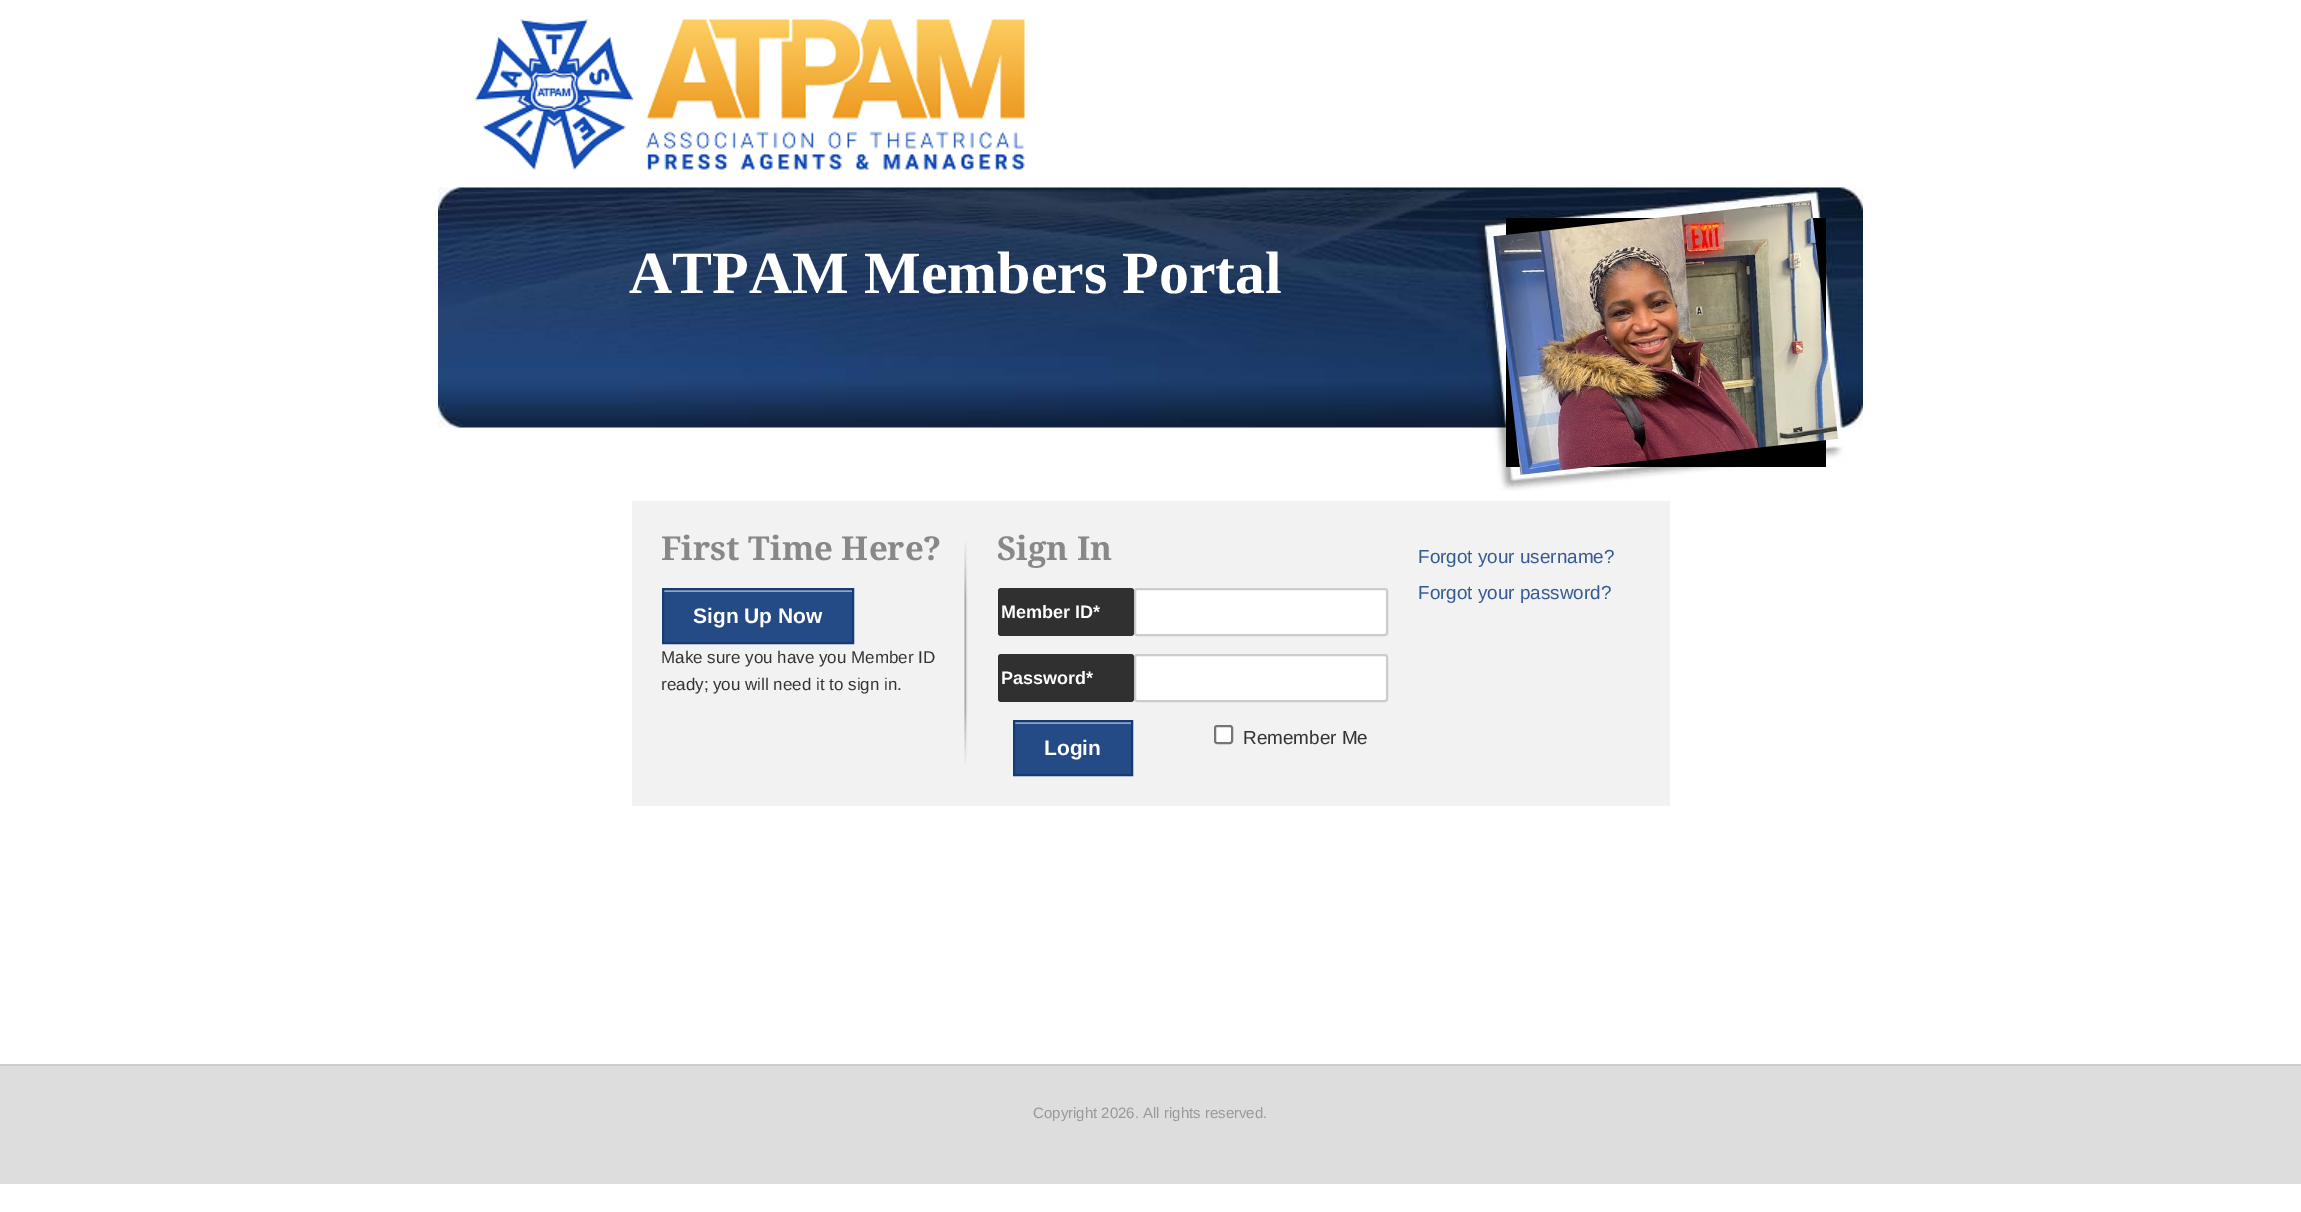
%!PS
<< /PageSize [2301 1212] >> setpagedevice
/rgb { dup -16 bitshift 255 div exch dup -8 bitshift 255 and 255 div exch 255 and 255 div setrgbcolor } def
/font { [ exch dup neg 0 0 3 -1 roll 0 0 ] selectfont } def
/text { moveto show } def
/roundrect { 5 dict begin { /r /h /w /y /x } { exch def } forall
  x r add y moveto x w add y 2 copy h add r arct x w add y h add x 1 index r arct
  x y h add x y r arct x y 2 copy exch w add exch r arct closepath end } def
/picture { 5 dict begin { /h /w /y /x /name } { exch def } forall
  gsave x y translate w h scale
  w h 8 [w 0 0 h 0 0] name (r) file false 3 colorimage grestore end } def
0 1212 translate 1 -1 scale
4 setmiterlimit
/s1 { /LiberationSerif-Bold 60 font 16#FFFFFF rgb } def
/s2 { /DroidSerif-Bold 33 font 16#888888 rgb } def
/s3 { /LiberationSans-Bold 21 font 16#FFFFFF rgb } def
/s4 { /LiberationSans-Regular 17 font 16#333333 rgb } def
/s5 { /LiberationSans-Bold 18 font 16#FFFFFF rgb } def
/s6 { /LiberationSans-Regular 18.9 font 16#333333 rgb } def
/s7 { /LiberationSans-Regular 18.9 font 16#345B96 rgb } def
/s8 { /LiberationSans-Regular 15 font 16#999999 rgb } def
16#FFFFFF rgb
0 0 2301 1212 rectfill
(pic1.raw) 475 19 550 151 picture
(pic2.raw) 1473 187 390 304 picture
(pic3.raw) 438 187 1035 241 picture
s1
(ATPAM Members Portal) 629 293 text
16#000000 rgb
1506 218 320 249 rectfill
(pic4.raw) 1493 200 345 275 picture
16#F2F2F2 rgb
632 501 1038 305 rectfill
s2
(First Time Here?) 661 560 text
(pic5.raw) 964 541 4 224 picture
16#244B86 rgb
664 592 188 50 rectfill
16#92A5C3 rgb
663 590 189 2 rectfill
16#143B76 rgb
2 setlinewidth
663 589 190 54 rectstroke
s3
(Sign Up Now) 693 623 text
s4
(Make sure you have you Member ID) 661 663 text
(ready; you will need it to sign in.) 661 690 text
s2
(Sign In) 997 560 text
16#303030 rgb
998 588 136 48 3 roundrect fill
s5
(Member ID*) 1001 618 text
1135 589 252 46 2 roundrect gsave fill grestore
16#CCCCCC rgb
stroke
16#303030 rgb
998 654 136 48 3 roundrect fill
s5
(Password*) 1001 684 text
1135 655 252 46 2 roundrect gsave fill grestore
16#CCCCCC rgb
stroke
16#FFFFFF rgb
1215 726 17 17 2 roundrect gsave fill grestore
16#767676 rgb
stroke
s6
(Remember Me) 1243 744 text
16#244B86 rgb
1015 724 116 50 rectfill
16#92A5C3 rgb
1014 722 117 2 rectfill
16#143B76 rgb
1014 721 118 54 rectstroke
s3
(Login) 1044 755 text
s7
(Forgot your username?) 1418 563 text
(Forgot your password?) 1418 599 text
16#DDDDDD rgb
0 1066 2301 118 rectfill
16#CCCCCC rgb
0 1064 2301 2 rectfill
s8
(Copyright 2026. All rights reserved.) 1033 1118 text
showpage
